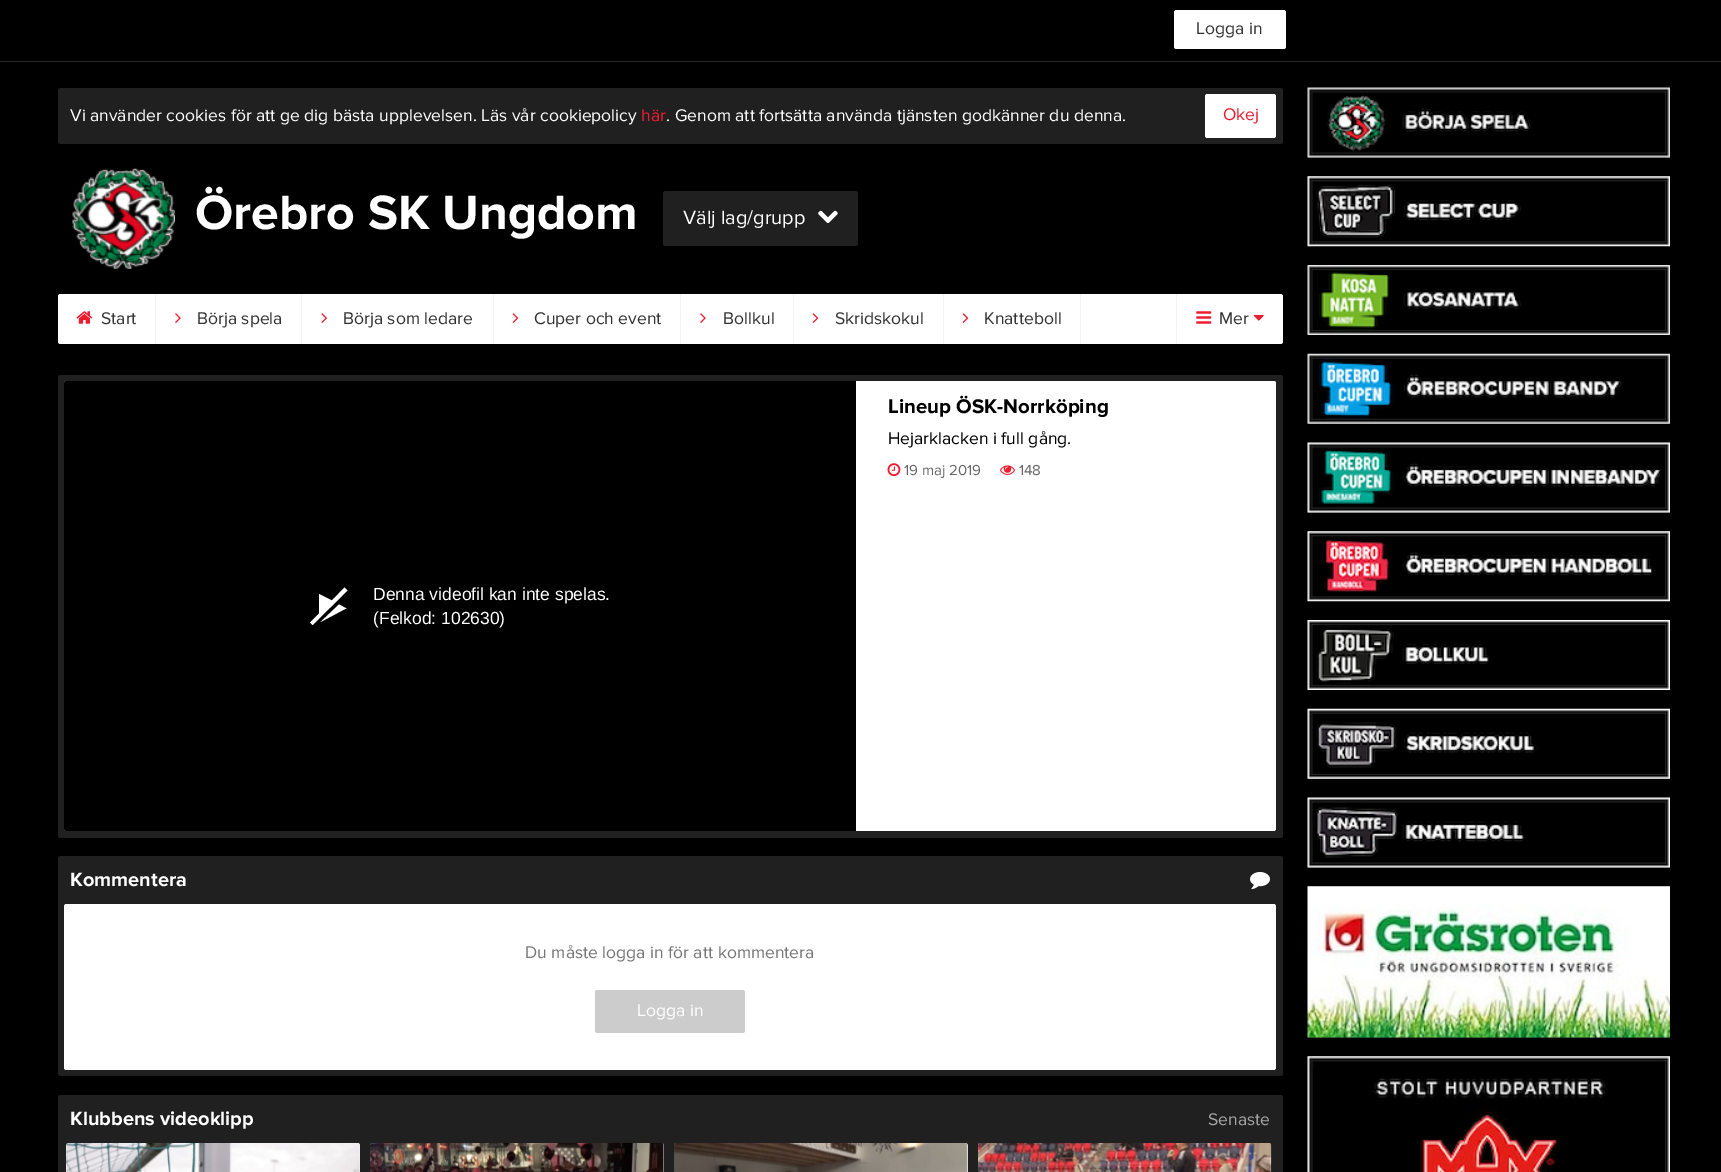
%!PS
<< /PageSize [1721 1172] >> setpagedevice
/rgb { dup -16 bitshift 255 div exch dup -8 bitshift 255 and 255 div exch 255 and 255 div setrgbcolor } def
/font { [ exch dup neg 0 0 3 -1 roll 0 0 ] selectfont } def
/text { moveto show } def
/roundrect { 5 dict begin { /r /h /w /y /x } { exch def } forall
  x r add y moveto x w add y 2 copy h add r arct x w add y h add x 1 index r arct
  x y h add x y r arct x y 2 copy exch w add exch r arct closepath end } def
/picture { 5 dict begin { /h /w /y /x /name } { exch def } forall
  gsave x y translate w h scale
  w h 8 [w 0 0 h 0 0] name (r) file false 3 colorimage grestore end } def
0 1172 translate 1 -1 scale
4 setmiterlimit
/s1 { /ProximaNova-Regular 17.5 font 16#333333 rgb } def
/s2 { /ProximaNova-Regular 17.5 font 16#FFFFFF rgb } def
/s3 { /ProximaNova-Regular 17.5 font 16#ED1C2E rgb } def
/s4 { /ProximaNova-Bold 50 font 16#FFFFFF rgb } def
/s5 { /ProximaNova-Regular 20 font 16#FFFFFF rgb } def
/s6 { /ProximaNova-Bold 20.5 font 16#000000 rgb } def
/s7 { /ProximaNova-Regular 17.5 font 16#000000 rgb } def
/s8 { /ProximaNova-Regular 15 font 16#666666 rgb } def
/s9 { /LiberationSans-Regular 17.5 font 16#FFFFFF rgb } def
/s10 { /ProximaNova-Bold 20 font 16#FFFFFF rgb } def
/s11 { /ProximaNova-Regular 17.5 font 16#777777 rgb } def
/s12 { /ProximaNova-Regular 17.5 font 16#A6A6A6 rgb } def
16#000000 rgb
0 0 1721 1172 rectfill
16#262626 rgb
0 61 1721 1 rectfill
16#FFFFFF rgb
1174 10 112 39 2.5 roundrect fill
s1
(Logga in) 1196 34 text
16#202020 rgb
58 88 1225 56 2.5 roundrect fill
s2
(Vi använder cookies för att ge dig bästa upplevelsen. Läs vår cookiepolicy) 70 121 text
s3
(här) 641 121 text
s2
(. Genom att fortsätta använda tjänsten godkänner du denna.) 666 121 text
1205 94 71 44 2.5 roundrect fill
s3
(Okej) 1223 120 text
(pic1.raw) 72 168 103 101 picture
s4
(Örebro SK Ungdom) 195 229 text
16#202020 rgb
663 191 195 55 2.5 roundrect fill
s5
(Välj lag/grupp) 683 224 text
(pic2.raw) 818 210 20 13 picture
58 294 1225 50 2.5 roundrect fill
16#F3F3F3 rgb
155 294 1 50 rectfill
(pic3.raw) 76 311 17 13 picture
s1
(Start) 101 324 text
16#F3F3F3 rgb
301 294 1 50 rectfill
(pic4.raw) 175 313 6 10 picture
s1
(Börja spela) 197 324 text
16#F3F3F3 rgb
493 294 1 50 rectfill
(pic5.raw) 321 313 6 10 picture
s1
(Börja som ledare) 343 324 text
16#F3F3F3 rgb
680 294 1 50 rectfill
(pic6.raw) 512 313 7 10 picture
s1
(Cuper och event) 534 324 text
16#F3F3F3 rgb
793 294 1 50 rectfill
(pic4.raw) 700 313 6 10 picture
s1
(Bollkul) 723 324 text
16#F3F3F3 rgb
943 294 1 50 rectfill
(pic6.raw) 812 313 7 10 picture
s1
(Skridskokul) 835 324 text
16#F3F3F3 rgb
1080 294 1 50 rectfill
(pic6.raw) 962 313 7 10 picture
s1
(Knatteboll) 984 324 text
16#F3F3F3 rgb
1176 294 1 50 rectfill
(pic7.raw) 1196 311 16 13 picture
s1
(Mer) 1219 324 text
(pic8.raw) 1253 315 11 6 picture
16#202020 rgb
58 375 1225 463 2.5 roundrect fill
16#FFFFFF rgb
64 381 1212 450 2.5 roundrect fill
875 381 401 117 2.5 roundrect fill
s6
(Lineup ÖSK-Norrköping) 888 413 text
s7
(Hejarklacken i full gång.) 888 444 text
(pic9.raw) 887 463 14 14 picture
s8
(19 maj 2019) 904 475 text
(pic10.raw) 1000 465 15 10 picture
(148) 1019 475 text
16#000000 rgb
66.5 381 moveto 856 381 lineto 856 831 lineto 66.5 831 lineto 65 831 64 830 64 828.5 curveto 64 383.5 lineto 64 382 65 381 66.5 381 curveto closepath fill
16#FFFFFF rgb
346 608.5 moveto 320.5 622 lineto 339 604.5 lineto 345.5 608 347 608.5 346 609 curveto closepath 344.5 587.5 moveto 332 600.5 lineto 319 594 lineto 319 613.5 lineto 310 622.5 lineto 312.5 625 lineto 347.5 590.5 lineto closepath fill
s9
(Denna videofil kan inte spelas.) 373 600 text
(\(Felkod: 102630\)) 373 624 text
16#202020 rgb
58 856 1225 220 2.5 roundrect fill
s10
(Kommentera) 70 886 text
(pic11.raw) 1250 872 20 18 picture
64 904 1212 166 2.5 roundrect fill
s11
(Du måste logga in för att kommentera) 525 958 text
16#CCCCCC rgb
595 990 150 43 2.5 roundrect fill
s2
(Logga in) 637 1016 text
16#202020 rgb
58 1095 1225 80 2.5 roundrect fill
s10
(Klubbens videoklipp) 70 1125 text
s12
(Senaste) 1208 1125 text
16#FFFFFF rgb
66 1143 294 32 2.5 roundrect fill
(pic12.raw) 66 1143 294 29 picture
370 1143 294 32 2.5 roundrect fill
(pic13.raw) 370 1143 294 29 picture
674 1143 294 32 2.5 roundrect fill
(pic14.raw) 674 1143 294 29 picture
(pic15.raw) 978 1143 294 29 picture
16#202020 rgb
1308 88 362 70 rectfill
(pic16.raw) 1307 87 363 71 picture
(pic17.raw) 1307 176 363 71 picture
(pic18.raw) 1307 265 363 70 picture
1308 354 362 70 rectfill
(pic19.raw) 1307 353 363 71 picture
1308 512 362 1 rectfill
(pic20.raw) 1307 442 363 71 picture
(pic21.raw) 1307 531 363 71 picture
(pic22.raw) 1307 620 363 70 picture
(pic23.raw) 1307 708 363 71 picture
1308 867 362 1 rectfill
(pic24.raw) 1307 797 363 71 picture
1308 886 362 152 rectfill
(pic25.raw) 1307 886 363 152 picture
(pic26.raw) 1307 1056 363 116 picture
showpage
